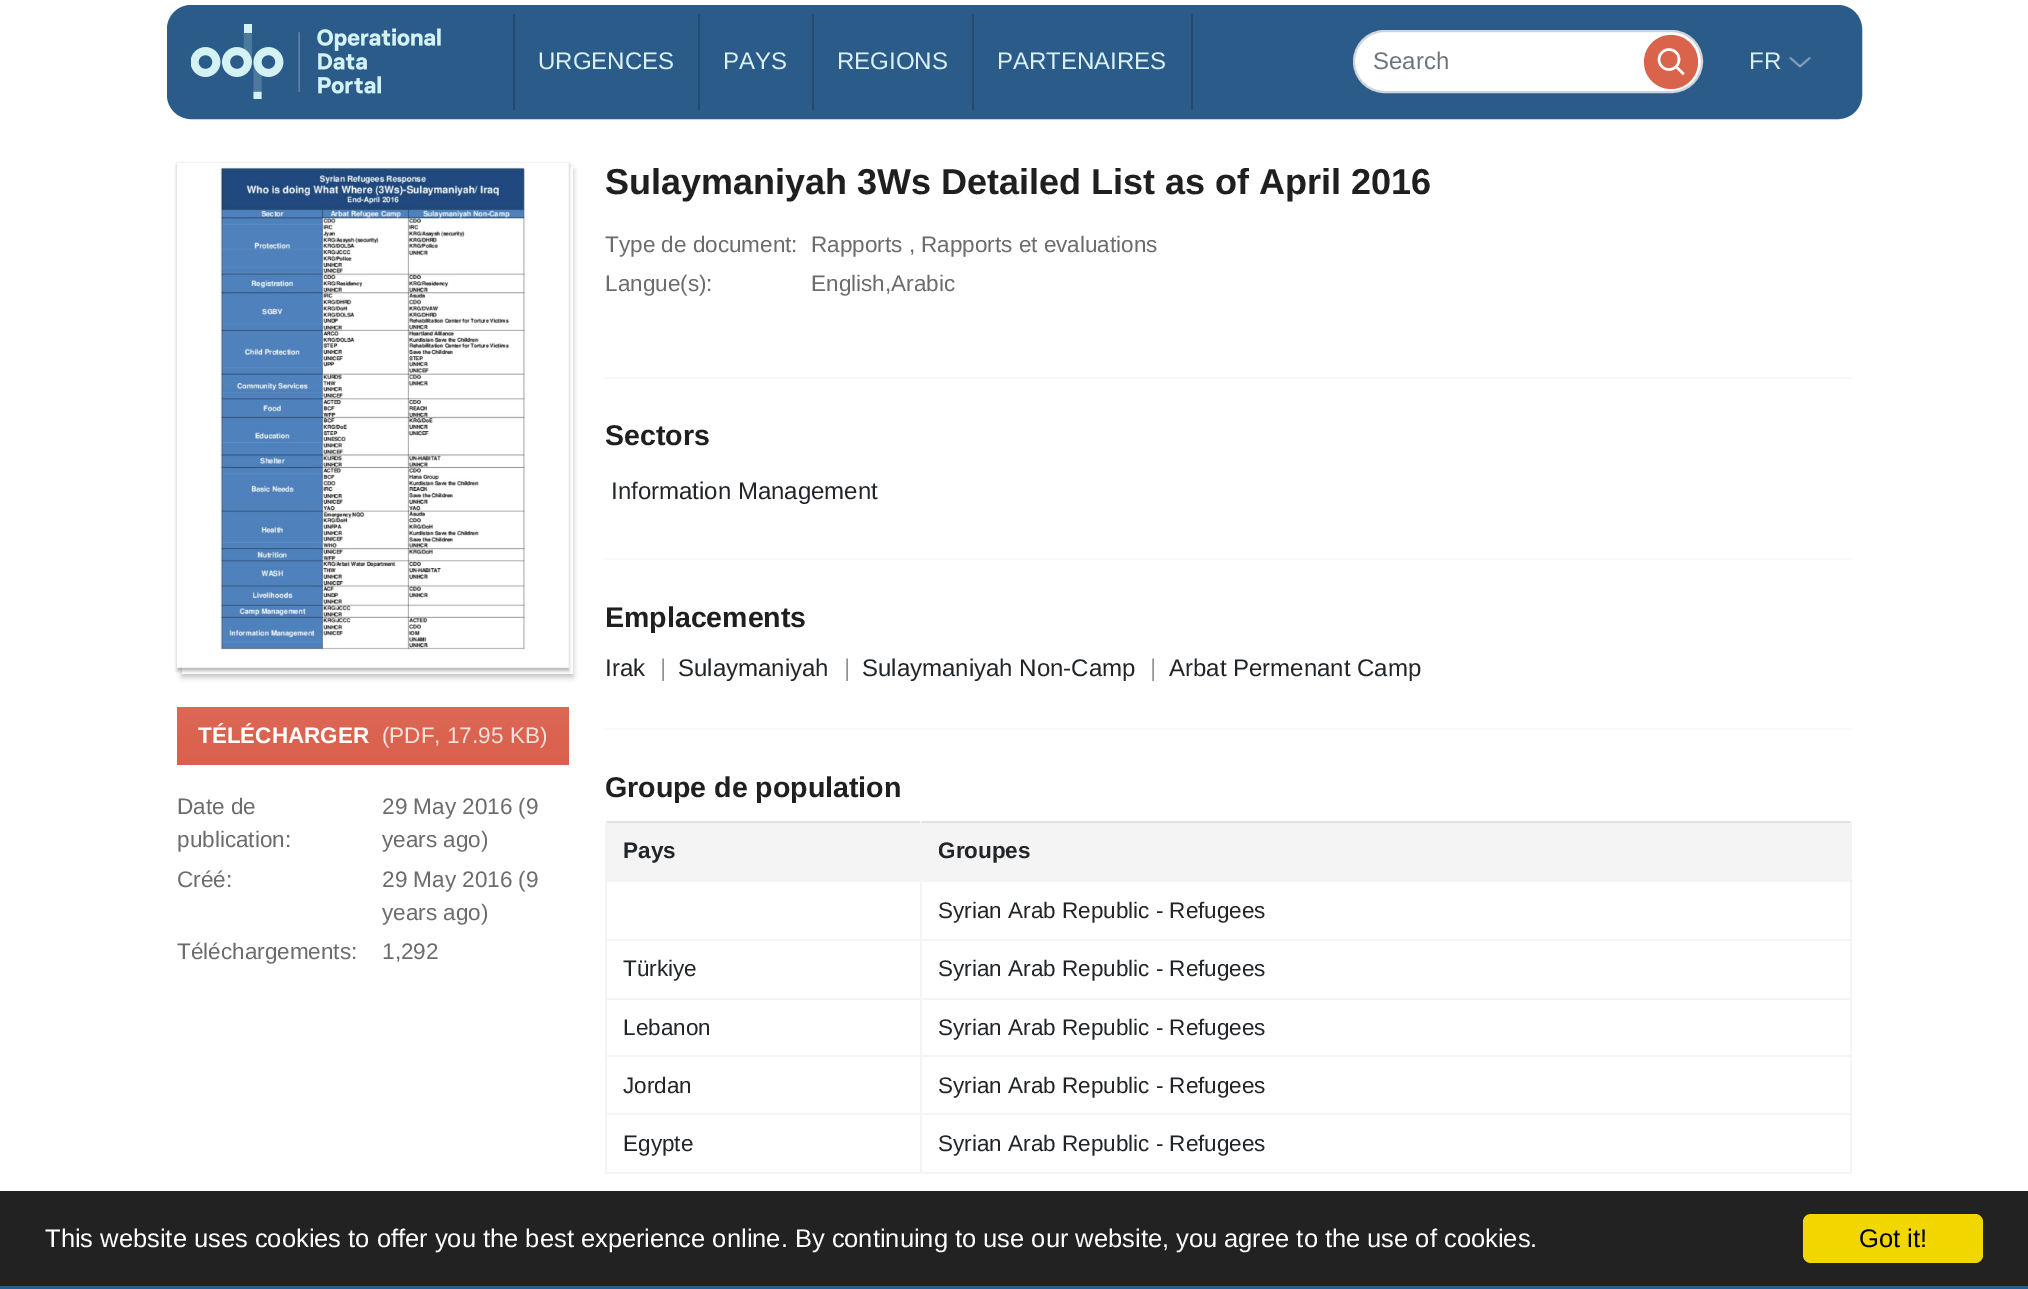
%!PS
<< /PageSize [2028 1289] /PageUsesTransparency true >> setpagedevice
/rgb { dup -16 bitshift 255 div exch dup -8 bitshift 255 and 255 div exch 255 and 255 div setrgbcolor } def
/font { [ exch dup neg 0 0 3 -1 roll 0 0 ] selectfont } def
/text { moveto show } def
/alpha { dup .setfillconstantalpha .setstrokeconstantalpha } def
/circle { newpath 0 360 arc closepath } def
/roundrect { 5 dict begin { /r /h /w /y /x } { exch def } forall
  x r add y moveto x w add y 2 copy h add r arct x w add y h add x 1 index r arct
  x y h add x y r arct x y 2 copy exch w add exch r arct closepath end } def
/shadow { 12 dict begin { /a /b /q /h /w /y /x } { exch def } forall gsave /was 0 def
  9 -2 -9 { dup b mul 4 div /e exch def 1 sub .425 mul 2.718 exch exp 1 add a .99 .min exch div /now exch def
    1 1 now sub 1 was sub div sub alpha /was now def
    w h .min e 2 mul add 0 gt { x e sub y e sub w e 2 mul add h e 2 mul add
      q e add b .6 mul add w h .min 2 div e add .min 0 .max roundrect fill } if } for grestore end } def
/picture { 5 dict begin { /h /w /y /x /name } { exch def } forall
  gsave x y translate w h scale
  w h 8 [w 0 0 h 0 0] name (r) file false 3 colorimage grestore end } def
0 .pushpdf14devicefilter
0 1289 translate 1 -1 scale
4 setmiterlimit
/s1 { /LiberationSans-Regular 24 font 16#DAF0F3 rgb } def
/s2 { /LiberationSans-Regular 24 font 16#6C757D rgb } def
/s3 { /LiberationSans-Bold 22.5 font 16#FFFFFF rgb } def
/s4 { /LiberationSans-Regular 22.5 font 16#F8E0DC rgb } def
/s5 { /LiberationSans-Regular 22.5 font 16#6C6C6C rgb } def
/s6 { /LiberationSans-Bold 36 font 16#1F1F1F rgb } def
/s7 { /LiberationSans-Bold 28.5 font 16#1F1F1F rgb } def
/s8 { /LiberationSans-Regular 24 font 16#212529 rgb } def
/s9 { /LiberationSans-Regular 24 font 16#909294 rgb } def
/s10 { /LiberationSans-Bold 22.5 font 16#212529 rgb } def
/s11 { /LiberationSans-Regular 22.5 font 16#212529 rgb } def
/s12 { /LiberationSans-Regular 25.5 font 16#FFFFFF rgb } def
/s13 { /LiberationSans-Regular 25.5 font 16#000000 rgb } def
16#FFFFFF rgb
0 0 2028 1289 rectfill
16#2A5B89 rgb
169.5 7.5 1690 109 21.5 roundrect gsave fill grestore
5 setlinewidth
stroke
(pic1.raw) 191 24 250 75 picture
16#22496E rgb
513 14 2 96 rectfill
s1
(URGENCES) 538 69 text
16#22496E rgb
698 14 2 96 rectfill
s1
(PAYS) 723 69 text
16#22496E rgb
812 14 2 96 rectfill
s1
(REGIONS) 837 69 text
16#22496E rgb
1191 14 2 96 rectfill
972 14 2 96 rectfill
s1
(PARTENAIRES) 997 69 text
16#FFFFFF rgb
1354 31 348 61 30.5 roundrect gsave fill grestore
16#CED4DA rgb
2 setlinewidth
stroke
s2
(Search) 1373 69 text
16#DA634B rgb
1671 62 27 circle fill
(pic2.raw) 1657 48 28 28 picture
s1
(FR) 1749 69 text
(pic3.raw) 1789 57 22 11 picture
16#000000 rgb
182 170 391 507 0 3 0.25 shadow
16#FFFFFF rgb
182 167 391 507 rectfill
16#000000 rgb
177 164 392 507 0 1.5 0.25 shadow
(pic4.raw) 177 163 392 505 picture
gsave 177 707 moveto 569 707 lineto 569 765 lineto 177 765 lineto closepath clip newpath
<< /ShadingType 2 /ColorSpace /DeviceRGB /Coords [373 707 373 765] /Extend [true true] /Function << /FunctionType 2 /Domain [0 1] /C0 [0.863 0.408 0.333] /C1 [0.855 0.376 0.302] /N 1 >> >> shfill grestore
s3
(TÉLÉCHARGER) 198 743 text
s4
(\(PDF, 17.95 KB\)) 382 743 text
s5
(Date de) 177 814 text
(publication:) 177 847 text
(29 May 2016 \(9) 382 814 text
(years ago\)) 382 847 text
(Créé:) 177 887 text
(29 May 2016 \(9) 382 887 text
(years ago\)) 382 920 text
(Téléchargements:) 177 959 text
(1,292) 382 959 text
s6
(Sulaymaniyah 3Ws Detailed List as of April 2016) 605 194 text
s5
(Type de document:) 605 252 text
(Rapports , Rapports et evaluations) 811 252 text
(Langue\(s\):) 605 291 text
(English,Arabic) 811 291 text
16#F9F9F9 rgb
605 377 1246 2 rectfill
s7
(Sectors) 605 445 text
s8
(Information Management) 611 499 text
16#F9F9F9 rgb
605 558 1246 2 rectfill
s7
(Emplacements) 605 627 text
s8
(Irak) 605 676 text
s9
(|) 660 676 text
s8
(Sulaymaniyah) 678 676 text
s9
(|) 844 676 text
s8
(Sulaymaniyah Non-Camp) 862 676 text
s9
(|) 1150 676 text
s8
(Arbat Permenant Camp) 1169 676 text
16#F9F9F9 rgb
605 728 1246 2 rectfill
s7
(Groupe de population) 605 797 text
16#DEE2E6 rgb
605 821 1246 2 rectfill
16#F4F4F4 rgb
607 823 313 56 rectfill
s10
(Pays) 623 858 text
16#F4F4F4 rgb
922 823 928 56 rectfill
920 939 931 2 rectfill
920 998 931 2 rectfill
920 1055 931 2 rectfill
920 1113 931 2 rectfill
1850 1113 2 60 rectfill
920 1172 931 2 rectfill
920 1113 2 60 rectfill
605 1113 316 2 rectfill
920 1055 2 60 rectfill
605 1055 316 2 rectfill
920 998 2 58 rectfill
605 998 316 2 rectfill
920 939 2 60 rectfill
605 939 316 2 rectfill
920 821 2 120 rectfill
605 1172 316 2 rectfill
605 1113 2 60 rectfill
605 1055 2 60 rectfill
605 998 2 58 rectfill
605 821 2 178 rectfill
1850 1055 2 60 rectfill
1850 998 2 58 rectfill
1850 821 2 178 rectfill
605 879 1248 3 rectfill
s10
(Groupes) 938 858 text
s11
(Syrian Arab Republic - Refugees) 938 918 text
(Türkiye) 623 976 text
(Syrian Arab Republic - Refugees) 938 976 text
(Lebanon) 623 1035 text
(Syrian Arab Republic - Refugees) 938 1035 text
(Jordan) 623 1093 text
(Syrian Arab Republic - Refugees) 938 1093 text
(Egypte) 623 1151 text
(Syrian Arab Republic - Refugees) 938 1151 text
16#222222 rgb
0 1191 2028 95 rectfill
s12
(This website uses cookies to offer you the best experience online. By continuing to use our website, you agree to the use of cookies.) 45 1247 text
16#F1D600 rgb
1803 1214 180 49 8 roundrect fill
s13
(Got it!) 1859 1247 text
16#2A5B89 rgb
0 1286 2028 3 rectfill
.poppdf14devicefilter showpage
